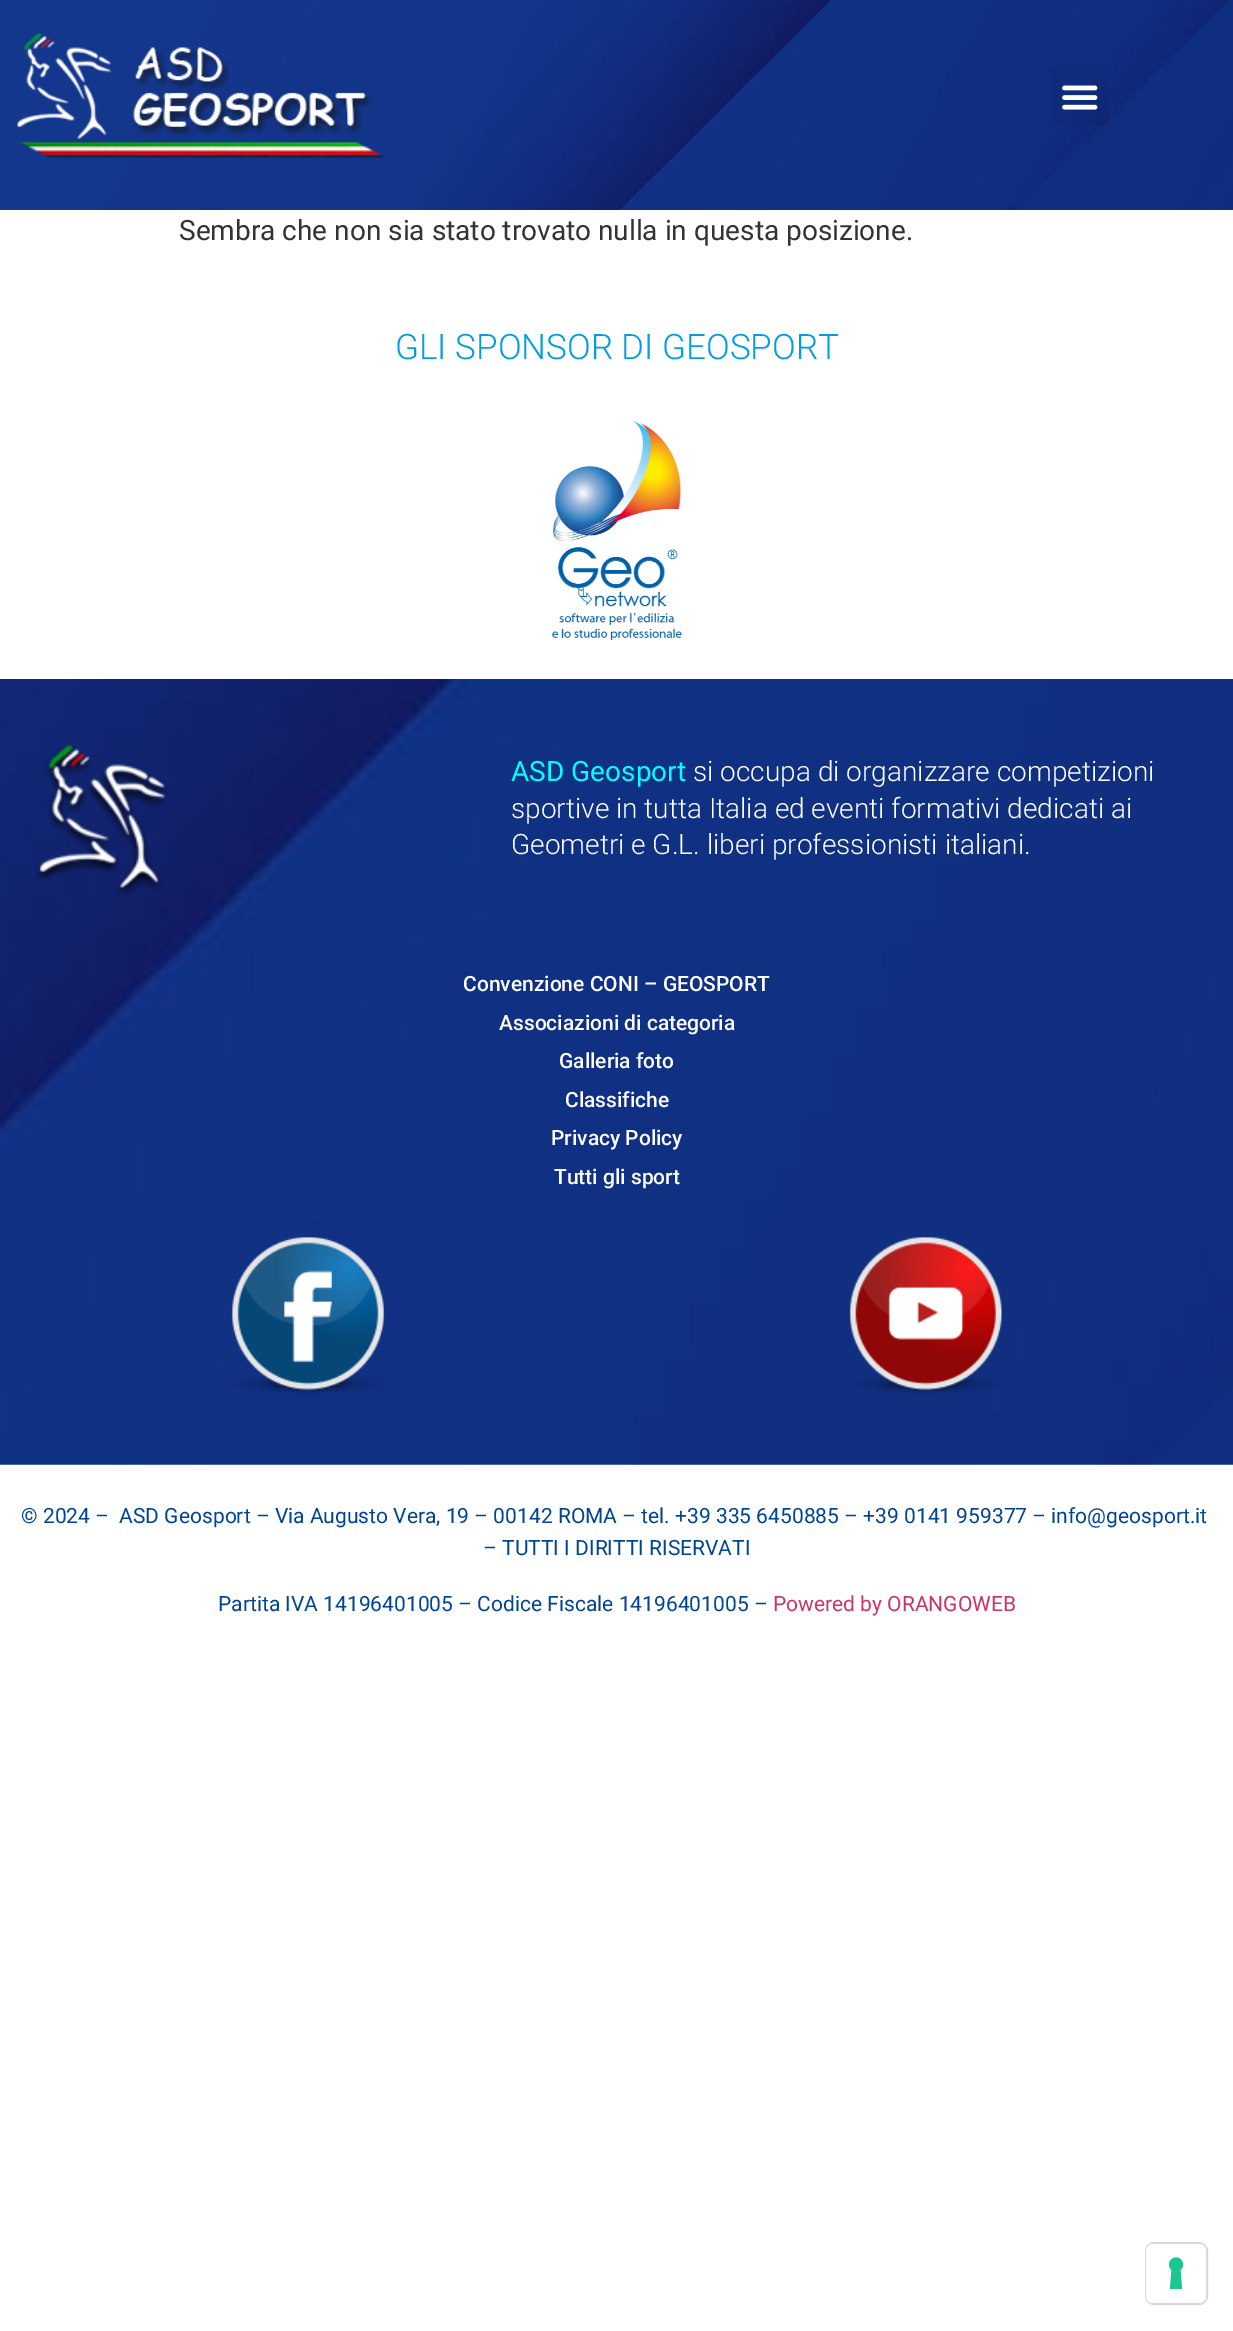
%!PS
<< /PageSize [1233 2331] /PageUsesTransparency true >> setpagedevice
/rgb { dup -16 bitshift 255 div exch dup -8 bitshift 255 and 255 div exch 255 and 255 div setrgbcolor } def
/font { [ exch dup neg 0 0 3 -1 roll 0 0 ] selectfont } def
/text { moveto show } def
/alpha { dup .setfillconstantalpha .setstrokeconstantalpha } def
/roundrect { 5 dict begin { /r /h /w /y /x } { exch def } forall
  x r add y moveto x w add y 2 copy h add r arct x w add y h add x 1 index r arct
  x y h add x y r arct x y 2 copy exch w add exch r arct closepath end } def
/picture { 5 dict begin { /h /w /y /x /name } { exch def } forall
  gsave x y translate w h scale
  w h 8 [w 0 0 h 0 0] name (r) file false 3 colorimage grestore end } def
0 .pushpdf14devicefilter
0 2331 translate 1 -1 scale
4 setmiterlimit
/s1 { /Roboto-Regular 28 font 16#333333 rgb } def
/s2 { /Roboto-Light 35 font 16#009EE0 rgb } def
/s3 { /Roboto-Regular 28 font 16#00FFFF rgb } def
/s4 { /Roboto-Light 28 font 16#FFFFFF rgb } def
/s5 { /Roboto-Medium 21 font 16#FFFFFF rgb } def
/s6 { /Roboto-Regular 21 font 16#004494 rgb } def
/s7 { /Roboto-Regular 21 font 16#CC3366 rgb } def
16#FFFFFF rgb
0 0 1233 2331 rectfill
(pic1.raw) 0 0 1233 210 picture
(pic2.raw) 17 33 369 126 picture
0.05 alpha
16#000000 rgb
1050 68 58 58 rectfill
1 alpha
(pic3.raw) 1062 85 36 25 picture
s1
(Sembra che non sia stato trovato nulla in questa posizione.) 179 240 text
s2
(GLI SPONSOR DI GEOSPORT) 395 359 text
(pic4.raw) 552 420 130 220 picture
(pic5.raw) 0 679 1233 786 picture
(pic6.raw) 35 745 133 152 picture
s3
(ASD Geosport) 511 781 text
s4
(si occupa di organizzare competizioni) 693 781 text
(sportive in tutta Italia ed eventi formativi dedicati ai) 511 818 text
(Geometri e G.L. liberi professionisti italiani.) 511 854 text
s5
(Convenzione CONI – GEOSPORT) 463 991 text
(Associazioni di categoria) 499 1030 text
(Galleria foto) 559 1068 text
(Classifiche) 565 1107 text
(Privacy Policy) 551 1145 text
(Tutti gli sport) 554 1184 text
(pic7.raw) 231 1237 154 157 picture
(pic8.raw) 849 1237 154 157 picture
s6
(© 2024 –  ASD Geosport – Via Augusto Vera, 19 – 00142 ROMA – tel. +39 335 6450885 – +39 0141 959377 – info@geosport.it) 21 1523 text
(– TUTTI I DIRITTI RISERVATI) 483 1555 text
(Partita IVA 14196401005 – Codice Fiscale 14196401005 –) 218 1611 text
s7
(Powered by ORANGOWEB) 773 1611 text
16#D9D9D9 rgb
2 setlinewidth
1146 2243 61 61 8 roundrect stroke
16#FFFFFF rgb
1146 2244 60 59 7 roundrect fill
16#1CC691 rgb
1176 2257.5 moveto 1182.5 2257.5 1185.5 2265.5 1180.5 2270 curveto 1182 2289 lineto 1170 2289 lineto 1171.5 2270 lineto 1166.5 2265.5 1169.5 2257.5 1176 2257.5 curveto closepath eofill
.poppdf14devicefilter showpage
